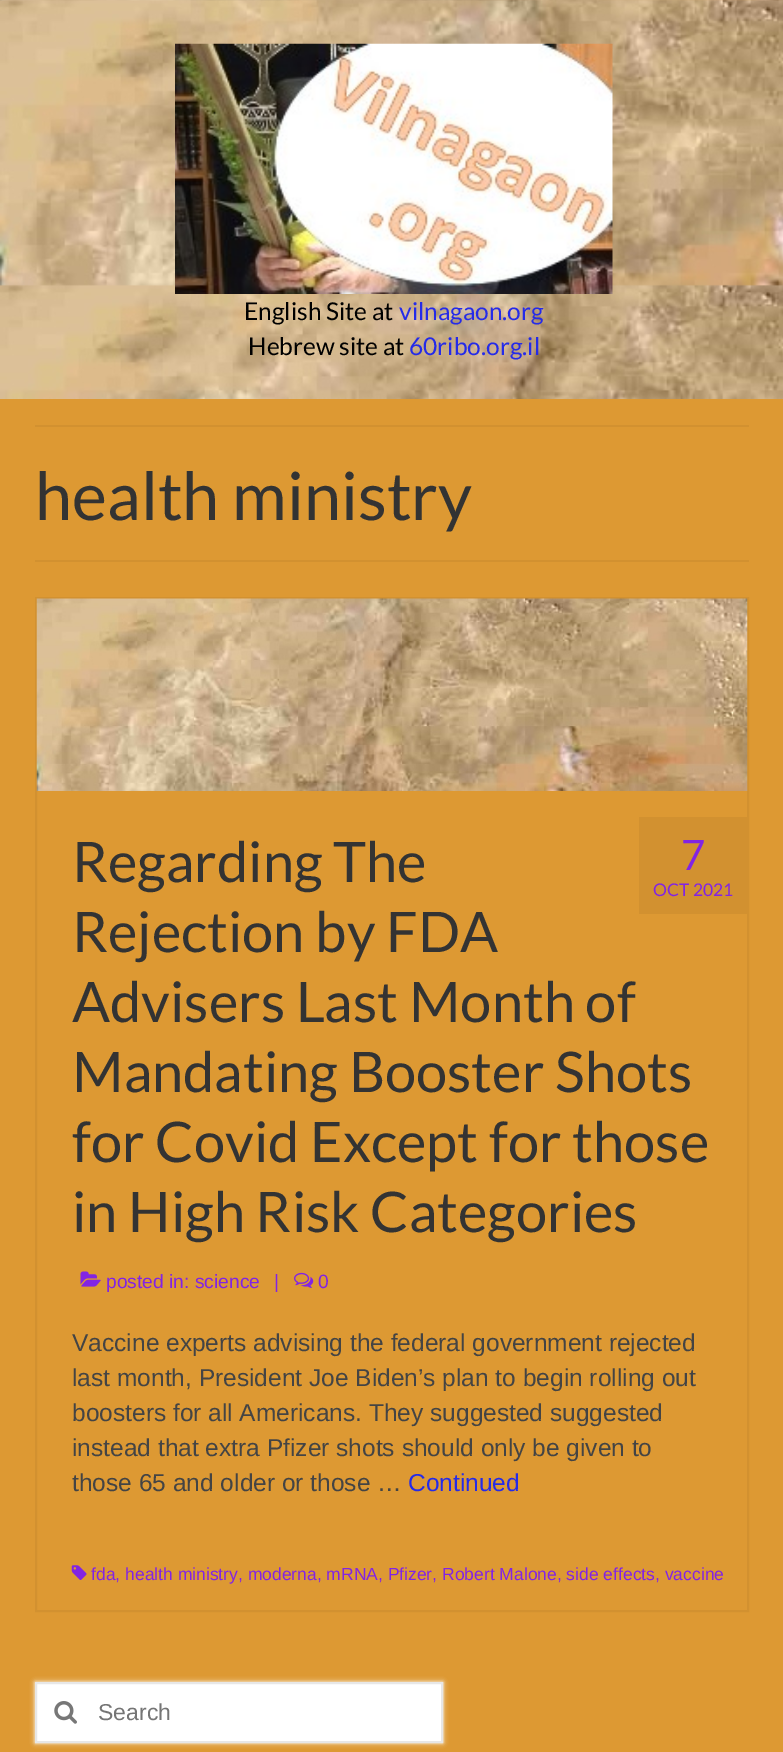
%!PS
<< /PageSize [783 1752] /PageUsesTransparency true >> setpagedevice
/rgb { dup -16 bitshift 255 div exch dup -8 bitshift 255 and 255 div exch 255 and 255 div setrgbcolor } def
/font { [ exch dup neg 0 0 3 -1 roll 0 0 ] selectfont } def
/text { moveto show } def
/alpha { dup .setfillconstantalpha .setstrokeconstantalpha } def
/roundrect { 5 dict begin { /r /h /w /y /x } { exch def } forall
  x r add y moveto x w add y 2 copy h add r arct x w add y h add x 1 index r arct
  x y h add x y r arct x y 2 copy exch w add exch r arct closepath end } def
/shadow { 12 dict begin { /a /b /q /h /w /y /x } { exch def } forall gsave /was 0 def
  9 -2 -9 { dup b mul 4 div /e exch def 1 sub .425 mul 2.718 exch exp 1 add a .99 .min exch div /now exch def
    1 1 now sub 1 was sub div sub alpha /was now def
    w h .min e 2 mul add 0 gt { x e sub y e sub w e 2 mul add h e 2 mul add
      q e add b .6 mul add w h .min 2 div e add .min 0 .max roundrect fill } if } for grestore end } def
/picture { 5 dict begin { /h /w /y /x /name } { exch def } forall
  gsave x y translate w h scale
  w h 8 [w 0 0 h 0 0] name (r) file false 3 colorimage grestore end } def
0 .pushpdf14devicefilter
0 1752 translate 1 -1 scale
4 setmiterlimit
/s1 { /Lato-Regular 24.5 font 16#000000 rgb } def
/s2 { /Lato-Regular 24.5 font 16#252BE8 rgb } def
/s3 { /Lato-Regular 66.5 font 16#333333 rgb } def
/s4 { /Lato-Regular 42 font 16#8224E3 rgb } def
/s5 { /Lato-Regular 17.5 font 16#8224E3 rgb } def
/s6 { /Lato-Regular 56 font 16#333333 rgb } def
/s7 { /LiberationSans-Regular 19.25 font 16#8224E3 rgb } def
/s8 { /LiberationSans-Regular 24.5 font 16#444444 rgb } def
/s9 { /LiberationSans-Regular 24.5 font 16#252BE8 rgb } def
/s10 { /LiberationSans-Regular 17.5 font 16#8224E3 rgb } def
/s11 { /LiberationSans-Regular 23 font 16#757575 rgb } def
16#FFFFFF rgb
0 0 783 1752 rectfill
(pic1.raw) 0 0 783 399 picture
(pic2.raw) 175 43 438 251 picture
s1
(English Site at) 244 320 text
s2
(vilnagaon.org) 399 320 text
s1
(Hebrew site at) 248 355 text
s2
(60ribo.org.il) 409 355 text
16#DD9933 rgb
0 399 783 1353 rectfill
16#D29130 rgb
35 425 714 2 rectfill
35 560 714 2 rectfill
s3
(health ministry) 35 520 text
16#D29130 rgb
2 setlinewidth
36 598 712 1013 rectstroke
(pic3.raw) 36 598 712 193 picture
639 817 108 97 rectfill
s4
(7) 681 870 text
s5
(OCT 2021) 653 896 text
s6
(Regarding The) 72 882 text
(Rejection by FDA) 72 952 text
(Advisers Last Month of) 72 1022 text
(Mandating Booster Shots) 72 1092 text
(for Covid Except for those) 72 1162 text
(in High Risk Categories) 72 1232 text
(pic4.raw) 80 1271 21 16 picture
s7
(posted in: science) 106 1288 text
(|) 274 1288 text
(pic5.raw) 294 1272 20 16 picture
(0) 318 1288 text
s8
(Vaccine experts advising the federal government rejected) 72 1351 text
(last month, President Joe Biden’s plan to begin rolling out) 72 1386 text
(boosters for all Americans. They suggested suggested) 72 1421 text
(instead that extra Pfizer shots should only be given to) 72 1456 text
(those 65 and older or those …) 72 1491 text
s9
(Continued) 408 1491 text
(pic6.raw) 71 1565 16 15 picture
s10
(fda, health ministry, moderna, mRNA, Pfizer, Robert Malone, side effects, vaccine) 91 1580 text
16#FFFFFF rgb
35 1682 408 61 0 2.5 1 shadow
36 1683 moveto 442 1683 lineto 442 1742 lineto 36 1742 lineto closepath gsave fill grestore
16#E7E7E7 rgb
stroke
(pic7.raw) 54 1701 23 23 picture
s11
(Search) 98 1720 text
.poppdf14devicefilter showpage
